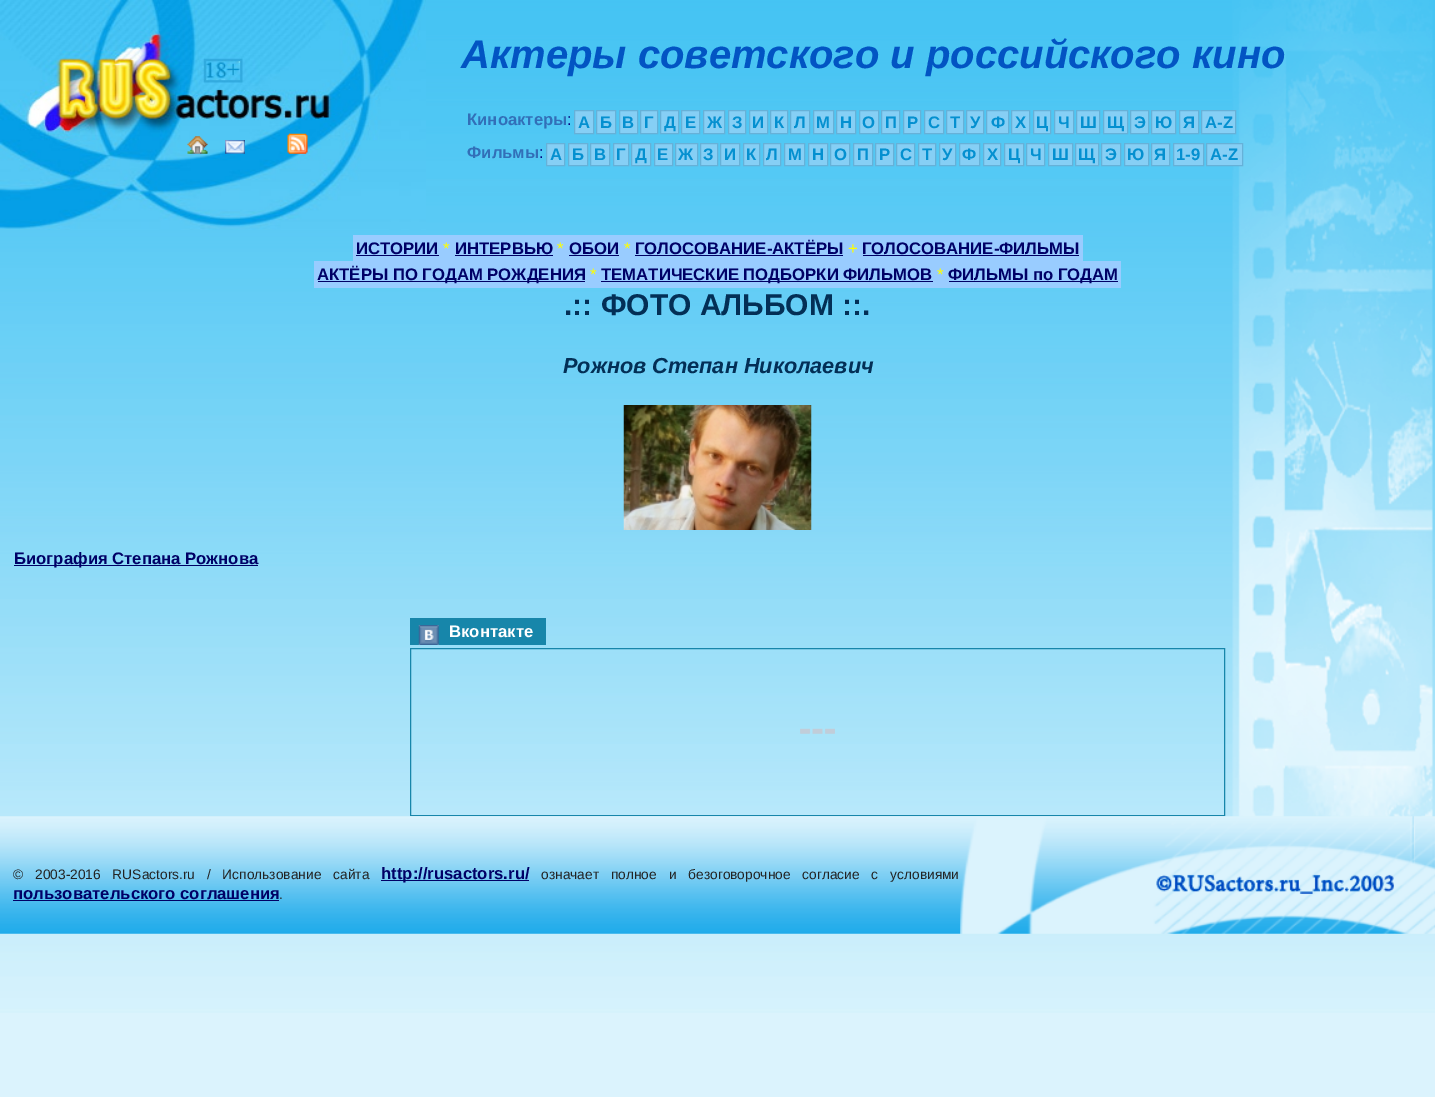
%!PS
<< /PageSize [1435 1097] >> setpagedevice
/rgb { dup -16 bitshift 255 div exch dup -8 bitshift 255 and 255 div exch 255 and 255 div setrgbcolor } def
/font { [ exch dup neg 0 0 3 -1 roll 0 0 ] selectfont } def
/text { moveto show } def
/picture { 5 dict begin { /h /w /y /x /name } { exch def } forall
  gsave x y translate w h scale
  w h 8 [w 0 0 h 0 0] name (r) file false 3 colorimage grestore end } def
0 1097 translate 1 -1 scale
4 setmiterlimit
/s1 { /LiberationSans-BoldItalic 40 font 16#0254C3 rgb } def
/s2 { /LiberationSans-Bold 16.7 font 16#326FB8 rgb } def
/s3 { /LiberationSans-Regular 16.7 font 16#000080 rgb } def
/s4 { /LiberationSans-Bold 16.7 font 16#0490D0 rgb } def
/s5 { /LiberationSans-Bold 16.7 font 16#000066 rgb } def
/s6 { /LiberationSans-Regular 16.7 font 16#FFFF00 rgb } def
/s7 { /LiberationSans-Bold 30 font 16#032F56 rgb } def
/s8 { /LiberationSans-BoldItalic 21.7 font 16#032F56 rgb } def
/s9 { /LiberationSans-Bold 16.7 font 16#FFFFFF rgb } def
/s10 { /LiberationSans-Regular 13.75 font 16#232323 rgb } def
16#DBF3FD rgb
0 0 1435 1097 rectfill
(pic1.raw) 0 0 1435 1013 picture
(pic2.raw) 1232 0 201 934 picture
(pic3.raw) 0 0 426 230 picture
(pic4.raw) 187 136 21 18 picture
(pic5.raw) 225 140 20 14 picture
(pic6.raw) 287 133 21 21 picture
s1
(Актеры советского и российского кино) 461 68 text
s2
(Киноактеры) 467 125 text
s3
(:) 567 125 text
16#86CFF5 rgb
574.5 110.5 moveto 593.5 110.5 lineto 593.5 133.5 lineto 574.5 133.5 lineto closepath gsave fill grestore
16#66B1D8 rgb
stroke
s4
(А) 578 128 text
16#86CFF5 rgb
596.5 110.5 moveto 615.5 110.5 lineto 615.5 133.5 lineto 596.5 133.5 lineto closepath gsave fill grestore
16#66B1D8 rgb
stroke
s4
(Б) 600 128 text
16#86CFF5 rgb
619.5 110.5 moveto 637.5 110.5 lineto 637.5 133.5 lineto 619.5 133.5 lineto closepath gsave fill grestore
16#66B1D8 rgb
stroke
s4
(В) 622 128 text
16#86CFF5 rgb
640.5 110.5 moveto 657.5 110.5 lineto 657.5 133.5 lineto 640.5 133.5 lineto closepath gsave fill grestore
16#66B1D8 rgb
stroke
s4
(Г) 644 128 text
16#86CFF5 rgb
660.5 110.5 moveto 678.5 110.5 lineto 678.5 133.5 lineto 660.5 133.5 lineto closepath gsave fill grestore
16#66B1D8 rgb
stroke
s4
(Д) 664 128 text
16#86CFF5 rgb
681.5 110.5 moveto 699.5 110.5 lineto 699.5 133.5 lineto 681.5 133.5 lineto closepath gsave fill grestore
16#66B1D8 rgb
stroke
s4
(Е) 685 128 text
16#86CFF5 rgb
703.5 110.5 moveto 724.5 110.5 lineto 724.5 133.5 lineto 703.5 133.5 lineto closepath gsave fill grestore
16#66B1D8 rgb
stroke
s4
(Ж) 707 128 text
16#86CFF5 rgb
728.5 110.5 moveto 745.5 110.5 lineto 745.5 133.5 lineto 728.5 133.5 lineto closepath gsave fill grestore
16#66B1D8 rgb
stroke
s4
(З) 732 128 text
16#86CFF5 rgb
749.5 110.5 moveto 767.5 110.5 lineto 767.5 133.5 lineto 749.5 133.5 lineto closepath gsave fill grestore
16#66B1D8 rgb
stroke
s4
(И) 752 128 text
16#86CFF5 rgb
770.5 110.5 moveto 787.5 110.5 lineto 787.5 133.5 lineto 770.5 133.5 lineto closepath gsave fill grestore
16#66B1D8 rgb
stroke
s4
(К) 774 128 text
16#86CFF5 rgb
790.5 110.5 moveto 809.5 110.5 lineto 809.5 133.5 lineto 790.5 133.5 lineto closepath gsave fill grestore
16#66B1D8 rgb
stroke
s4
(Л) 794 128 text
16#86CFF5 rgb
813.5 110.5 moveto 833.5 110.5 lineto 833.5 133.5 lineto 813.5 133.5 lineto closepath gsave fill grestore
16#66B1D8 rgb
stroke
s4
(М) 816 128 text
16#86CFF5 rgb
836.5 110.5 moveto 855.5 110.5 lineto 855.5 133.5 lineto 836.5 133.5 lineto closepath gsave fill grestore
16#66B1D8 rgb
stroke
s4
(Н) 840 128 text
16#86CFF5 rgb
859.5 110.5 moveto 878.5 110.5 lineto 878.5 133.5 lineto 859.5 133.5 lineto closepath gsave fill grestore
16#66B1D8 rgb
stroke
s4
(О) 862 128 text
16#86CFF5 rgb
881.5 110.5 moveto 899.5 110.5 lineto 899.5 133.5 lineto 881.5 133.5 lineto closepath gsave fill grestore
16#66B1D8 rgb
stroke
s4
(П) 885 128 text
16#86CFF5 rgb
903.5 110.5 moveto 920.5 110.5 lineto 920.5 133.5 lineto 903.5 133.5 lineto closepath gsave fill grestore
16#66B1D8 rgb
stroke
s4
(Р) 907 128 text
16#86CFF5 rgb
924.5 110.5 moveto 943.5 110.5 lineto 943.5 133.5 lineto 924.5 133.5 lineto closepath gsave fill grestore
16#66B1D8 rgb
stroke
s4
(С) 928 128 text
16#86CFF5 rgb
946.5 110.5 moveto 963.5 110.5 lineto 963.5 133.5 lineto 946.5 133.5 lineto closepath gsave fill grestore
16#66B1D8 rgb
stroke
s4
(Т) 950 128 text
16#86CFF5 rgb
966.5 110.5 moveto 983.5 110.5 lineto 983.5 133.5 lineto 966.5 133.5 lineto closepath gsave fill grestore
16#66B1D8 rgb
stroke
s4
(У) 970 128 text
16#86CFF5 rgb
986.5 110.5 moveto 1008.5 110.5 lineto 1008.5 133.5 lineto 986.5 133.5 lineto closepath gsave fill grestore
16#66B1D8 rgb
stroke
s4
(Ф) 991 128 text
16#86CFF5 rgb
1011.5 110.5 moveto 1029.5 110.5 lineto 1029.5 133.5 lineto 1011.5 133.5 lineto closepath gsave fill grestore
16#66B1D8 rgb
stroke
s4
(Х) 1015 128 text
16#86CFF5 rgb
1033.5 110.5 moveto 1050.5 110.5 lineto 1050.5 133.5 lineto 1033.5 133.5 lineto closepath gsave fill grestore
16#66B1D8 rgb
stroke
s4
(Ц) 1036 128 text
16#86CFF5 rgb
1054.5 110.5 moveto 1073.5 110.5 lineto 1073.5 133.5 lineto 1054.5 133.5 lineto closepath gsave fill grestore
16#66B1D8 rgb
stroke
s4
(Ч) 1058 128 text
16#86CFF5 rgb
1076.5 110.5 moveto 1099.5 110.5 lineto 1099.5 133.5 lineto 1076.5 133.5 lineto closepath gsave fill grestore
16#66B1D8 rgb
stroke
s4
(Ш) 1080 128 text
16#86CFF5 rgb
1103.5 110.5 moveto 1127.5 110.5 lineto 1127.5 133.5 lineto 1103.5 133.5 lineto closepath gsave fill grestore
16#66B1D8 rgb
stroke
s4
(Щ) 1107 128 text
16#86CFF5 rgb
1130.5 110.5 moveto 1148.5 110.5 lineto 1148.5 133.5 lineto 1130.5 133.5 lineto closepath gsave fill grestore
16#66B1D8 rgb
stroke
s4
(Э) 1134 128 text
16#86CFF5 rgb
1151.5 110.5 moveto 1175.5 110.5 lineto 1175.5 133.5 lineto 1151.5 133.5 lineto closepath gsave fill grestore
16#66B1D8 rgb
stroke
s4
(Ю) 1155 128 text
16#86CFF5 rgb
1179.5 110.5 moveto 1198.5 110.5 lineto 1198.5 133.5 lineto 1179.5 133.5 lineto closepath gsave fill grestore
16#66B1D8 rgb
stroke
s4
(Я) 1183 128 text
16#86CFF5 rgb
1201.5 110.5 moveto 1235.5 110.5 lineto 1235.5 133.5 lineto 1201.5 133.5 lineto closepath gsave fill grestore
16#66B1D8 rgb
stroke
s4
(A-Z) 1205 128 text
s2
(Фильмы) 467 158 text
s3
(:) 539 158 text
16#86CFF5 rgb
546.5 143.5 moveto 564.5 143.5 lineto 564.5 165.5 lineto 546.5 165.5 lineto closepath gsave fill grestore
16#66B1D8 rgb
stroke
s4
(А) 550 160 text
16#86CFF5 rgb
568.5 143.5 moveto 587.5 143.5 lineto 587.5 165.5 lineto 568.5 165.5 lineto closepath gsave fill grestore
16#66B1D8 rgb
stroke
s4
(Б) 572 160 text
16#86CFF5 rgb
590.5 143.5 moveto 609.5 143.5 lineto 609.5 165.5 lineto 590.5 165.5 lineto closepath gsave fill grestore
16#66B1D8 rgb
stroke
s4
(В) 594 160 text
16#86CFF5 rgb
613.5 143.5 moveto 628.5 143.5 lineto 628.5 165.5 lineto 613.5 165.5 lineto closepath gsave fill grestore
16#66B1D8 rgb
stroke
s4
(Г) 616 160 text
16#86CFF5 rgb
631.5 143.5 moveto 650.5 143.5 lineto 650.5 165.5 lineto 631.5 165.5 lineto closepath gsave fill grestore
16#66B1D8 rgb
stroke
s4
(Д) 635 160 text
16#86CFF5 rgb
654.5 143.5 moveto 672.5 143.5 lineto 672.5 165.5 lineto 654.5 165.5 lineto closepath gsave fill grestore
16#66B1D8 rgb
stroke
s4
(Е) 657 160 text
16#86CFF5 rgb
675.5 143.5 moveto 697.5 143.5 lineto 697.5 165.5 lineto 675.5 165.5 lineto closepath gsave fill grestore
16#66B1D8 rgb
stroke
s4
(Ж) 678 160 text
16#86CFF5 rgb
700.5 143.5 moveto 717.5 143.5 lineto 717.5 165.5 lineto 700.5 165.5 lineto closepath gsave fill grestore
16#66B1D8 rgb
stroke
s4
(З) 703 160 text
16#86CFF5 rgb
720.5 143.5 moveto 739.5 143.5 lineto 739.5 165.5 lineto 720.5 165.5 lineto closepath gsave fill grestore
16#66B1D8 rgb
stroke
s4
(И) 724 160 text
16#86CFF5 rgb
743.5 143.5 moveto 759.5 143.5 lineto 759.5 165.5 lineto 743.5 165.5 lineto closepath gsave fill grestore
16#66B1D8 rgb
stroke
s4
(К) 746 160 text
16#86CFF5 rgb
763.5 143.5 moveto 780.5 143.5 lineto 780.5 165.5 lineto 763.5 165.5 lineto closepath gsave fill grestore
16#66B1D8 rgb
stroke
s4
(Л) 766 160 text
16#86CFF5 rgb
784.5 143.5 moveto 804.5 143.5 lineto 804.5 165.5 lineto 784.5 165.5 lineto closepath gsave fill grestore
16#66B1D8 rgb
stroke
s4
(М) 788 160 text
16#86CFF5 rgb
808.5 143.5 moveto 827.5 143.5 lineto 827.5 165.5 lineto 808.5 165.5 lineto closepath gsave fill grestore
16#66B1D8 rgb
stroke
s4
(Н) 812 160 text
16#86CFF5 rgb
830.5 143.5 moveto 849.5 143.5 lineto 849.5 165.5 lineto 830.5 165.5 lineto closepath gsave fill grestore
16#66B1D8 rgb
stroke
s4
(О) 834 160 text
16#86CFF5 rgb
853.5 143.5 moveto 872.5 143.5 lineto 872.5 165.5 lineto 853.5 165.5 lineto closepath gsave fill grestore
16#66B1D8 rgb
stroke
s4
(П) 857 160 text
16#86CFF5 rgb
875.5 143.5 moveto 893.5 143.5 lineto 893.5 165.5 lineto 875.5 165.5 lineto closepath gsave fill grestore
16#66B1D8 rgb
stroke
s4
(Р) 879 160 text
16#86CFF5 rgb
896.5 143.5 moveto 914.5 143.5 lineto 914.5 165.5 lineto 896.5 165.5 lineto closepath gsave fill grestore
16#66B1D8 rgb
stroke
s4
(С) 900 160 text
16#86CFF5 rgb
918.5 143.5 moveto 935.5 143.5 lineto 935.5 165.5 lineto 918.5 165.5 lineto closepath gsave fill grestore
16#66B1D8 rgb
stroke
s4
(Т) 922 160 text
16#86CFF5 rgb
939.5 143.5 moveto 955.5 143.5 lineto 955.5 165.5 lineto 939.5 165.5 lineto closepath gsave fill grestore
16#66B1D8 rgb
stroke
s4
(У) 942 160 text
16#86CFF5 rgb
959.5 143.5 moveto 979.5 143.5 lineto 979.5 165.5 lineto 959.5 165.5 lineto closepath gsave fill grestore
16#66B1D8 rgb
stroke
s4
(Ф) 962 160 text
16#86CFF5 rgb
983.5 143.5 moveto 1000.5 143.5 lineto 1000.5 165.5 lineto 983.5 165.5 lineto closepath gsave fill grestore
16#66B1D8 rgb
stroke
s4
(Х) 987 160 text
16#86CFF5 rgb
1004.5 143.5 moveto 1023.5 143.5 lineto 1023.5 165.5 lineto 1004.5 165.5 lineto closepath gsave fill grestore
16#66B1D8 rgb
stroke
s4
(Ц) 1008 160 text
16#86CFF5 rgb
1026.5 143.5 moveto 1044.5 143.5 lineto 1044.5 165.5 lineto 1026.5 165.5 lineto closepath gsave fill grestore
16#66B1D8 rgb
stroke
s4
(Ч) 1030 160 text
16#86CFF5 rgb
1048.5 143.5 moveto 1072.5 143.5 lineto 1072.5 165.5 lineto 1048.5 165.5 lineto closepath gsave fill grestore
16#66B1D8 rgb
stroke
s4
(Ш) 1052 160 text
16#86CFF5 rgb
1075.5 143.5 moveto 1098.5 143.5 lineto 1098.5 165.5 lineto 1075.5 165.5 lineto closepath gsave fill grestore
16#66B1D8 rgb
stroke
s4
(Щ) 1078 160 text
16#86CFF5 rgb
1101.5 143.5 moveto 1120.5 143.5 lineto 1120.5 165.5 lineto 1101.5 165.5 lineto closepath gsave fill grestore
16#66B1D8 rgb
stroke
s4
(Э) 1105 160 text
16#86CFF5 rgb
1124.5 143.5 moveto 1148.5 143.5 lineto 1148.5 165.5 lineto 1124.5 165.5 lineto closepath gsave fill grestore
16#66B1D8 rgb
stroke
s4
(Ю) 1127 160 text
16#86CFF5 rgb
1151.5 143.5 moveto 1169.5 143.5 lineto 1169.5 165.5 lineto 1151.5 165.5 lineto closepath gsave fill grestore
16#66B1D8 rgb
stroke
s4
(Я) 1154 160 text
16#86CFF5 rgb
1173.5 143.5 moveto 1203.5 143.5 lineto 1203.5 165.5 lineto 1173.5 165.5 lineto closepath gsave fill grestore
16#66B1D8 rgb
stroke
s4
(1-9) 1176 160 text
16#86CFF5 rgb
1206.5 143.5 moveto 1242.5 143.5 lineto 1242.5 165.5 lineto 1206.5 165.5 lineto closepath gsave fill grestore
16#66B1D8 rgb
stroke
s4
(A-Z) 1210 160 text
16#99CCFF rgb
353 235 730 26 rectfill
s5
(ИСТОРИИ) 356 254 text
356 255 83 1 rectfill
s6
(*) 443 254 text
s5
(ИНТЕРВЬЮ) 455 254 text
455 255 98 1 rectfill
s6
(*) 557 254 text
s5
(ОБОИ) 569 254 text
569 255 50 1 rectfill
s6
(*) 624 254 text
s5
(ГОЛОСОВАНИЕ-АКТЁРЫ) 635 254 text
635 255 208 1 rectfill
s6
(+) 848 254 text
s5
(ГОЛОСОВАНИЕ-ФИЛЬМЫ) 862 254 text
863 255 216 1 rectfill
16#99CCFF rgb
314 261 807 27 rectfill
16#000066 rgb
318 281 267 1 rectfill
(АКТЁРЫ ПО ГОДАМ РОЖДЕНИЯ) 317 280 text
s6
(*) 590 280 text
16#000066 rgb
601 281 332 1 rectfill
s5
(ТЕМАТИЧЕСКИЕ ПОДБОРКИ ФИЛЬМОВ) 601 280 text
s6
(*) 937 280 text
16#000066 rgb
949 281 169 1 rectfill
s5
(ФИЛЬМЫ по ГОДАМ) 948 280 text
s7
(.:: ФОТО АЛЬБОМ ::.) 564 315 text
s8
(Рожнов Степан Николаевич) 563 373 text
(pic7.raw) 623 405 189 125 picture
16#000066 rgb
14 565 244 1 rectfill
s5
(Биография Степана Рожнова) 14 564 text
16#1786AA rgb
410 618 136 27 rectfill
(pic8.raw) 418 625 21 20 picture
s9
(Вконтакте) 449 637 text
16#1786AA rgb
410.5 648.5 814 167 rectstroke
(pic9.raw) 800 728 35 6 picture
(pic10.raw) 0 816 960 118 picture
/LiberationSans-Regular 13.75 font
16#232323 rgb
13 879 moveto 8 0 32 (© 2003-2016 RUSactors.ru / Использование сайта) widthshow
16#000066 rgb
381 880 148 1 rectfill
s5
(http://rusactors.ru/) 381 879 text
/LiberationSans-Regular 13.75 font
16#232323 rgb
541 879 moveto 8 0 32 (означает полное и безоговорочное согласие с условиями) widthshow
s5
(пользовательского соглашения) 13 899 text
13 900 266 1 rectfill
s10
(.) 279 899 text
(pic11.raw) 960 816 475 118 picture
showpage
